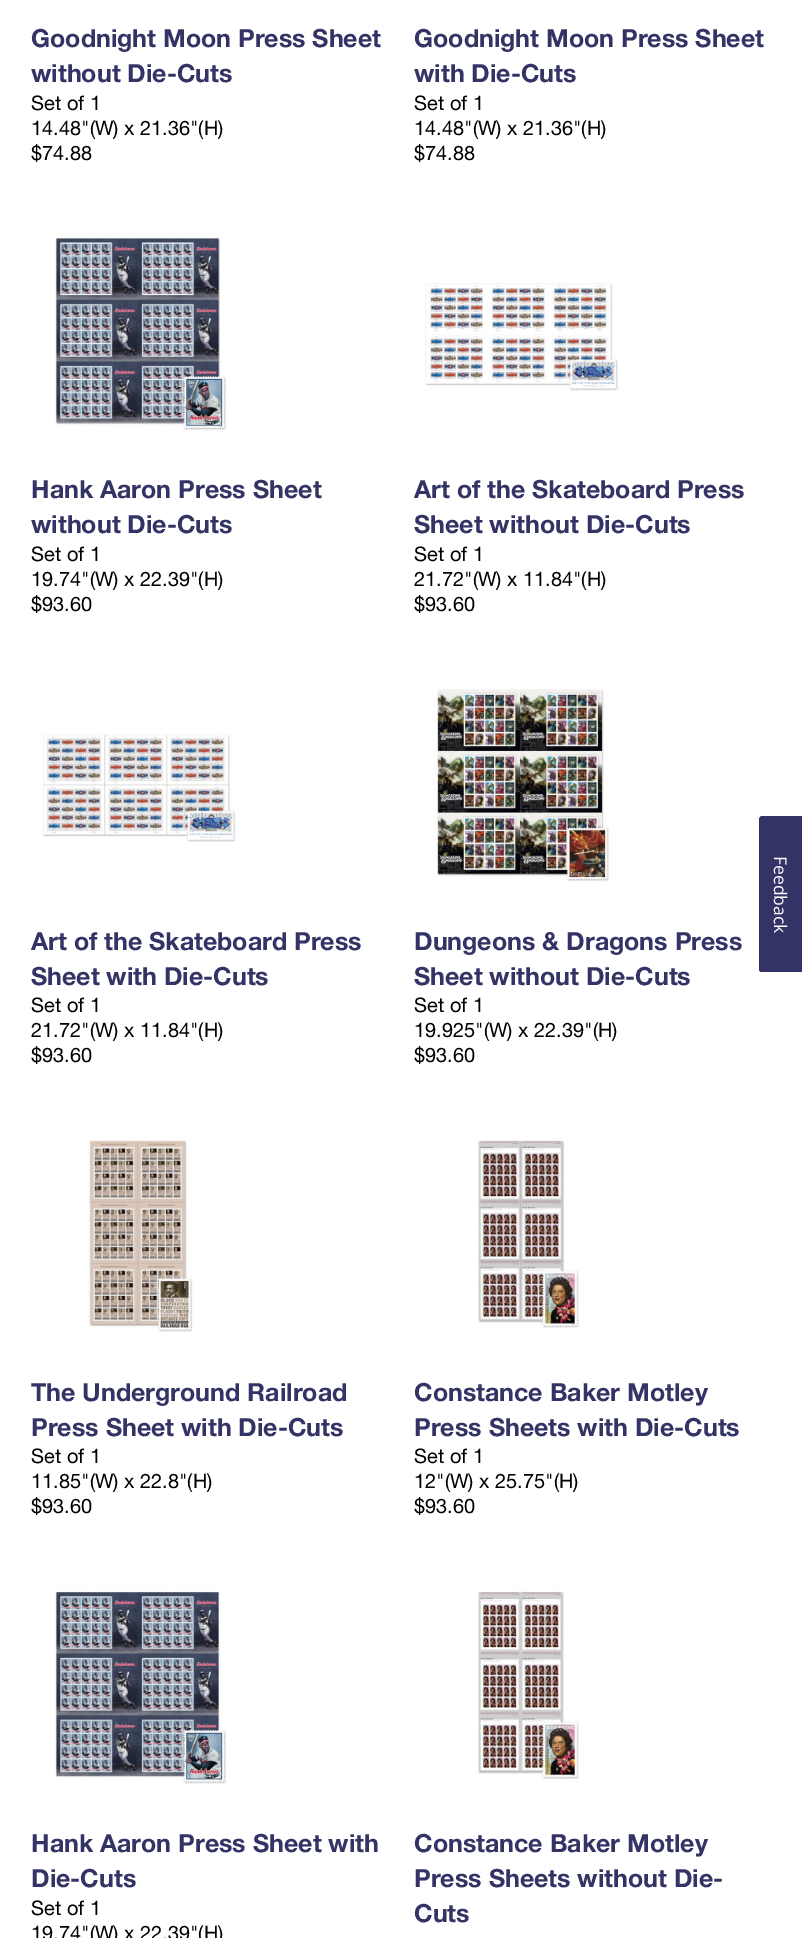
%!PS
<< /PageSize [802 1938] >> setpagedevice
/rgb { dup -16 bitshift 255 div exch dup -8 bitshift 255 and 255 div exch 255 and 255 div setrgbcolor } def
/font { [ exch dup neg 0 0 3 -1 roll 0 0 ] selectfont } def
/text { moveto show } def
/picture { 5 dict begin { /h /w /y /x /name } { exch def } forall
  gsave x y translate w h scale
  w h 8 [w 0 0 h 0 0] name (r) file false 3 colorimage grestore end } def
0 1938 translate 1 -1 scale
4 setmiterlimit
/s1 { /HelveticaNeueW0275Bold-Bold 25 font 16#333366 rgb } def
/s2 { /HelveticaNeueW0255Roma-Regular 20 font 16#000000 rgb } def
16#FFFFFF rgb
0 0 802 1938 rectfill
s1
(Goodnight Moon Press Sheet) 31 47 text
(without Die-Cuts) 31 82 text
s2
(Set of 1) 31 110 text
(14.48"\(W\) x 21.36"\(H\)) 31 135 text
($74.88) 31 160 text
s1
(Goodnight Moon Press Sheet) 414 47 text
(with Die-Cuts) 414 82 text
s2
(Set of 1) 414 110 text
(14.48"\(W\) x 21.36"\(H\)) 414 135 text
($74.88) 414 160 text
(pic1.raw) 55 234 172 197 picture
s1
(Hank Aaron Press Sheet) 31 498 text
(without Die-Cuts) 31 533 text
s2
(Set of 1) 31 561 text
(19.74"\(W\) x 22.39"\(H\)) 31 586 text
($93.60) 31 611 text
(pic2.raw) 425 283 194 108 picture
s1
(Art of the Skateboard Press) 414 498 text
(Sheet without Die-Cuts) 414 533 text
s2
(Set of 1) 414 561 text
(21.72"\(W\) x 11.84"\(H\)) 414 586 text
($93.60) 414 611 text
(pic3.raw) 42 734 194 108 picture
s1
(Art of the Skateboard Press) 31 950 text
(Sheet with Die-Cuts) 31 985 text
s2
(Set of 1) 31 1012 text
(21.72"\(W\) x 11.84"\(H\)) 31 1037 text
($93.60) 31 1062 text
(pic4.raw) 433 689 182 193 picture
s1
(Dungeons & Dragons Press) 414 950 text
(Sheet without Die-Cuts) 414 985 text
s2
(Set of 1) 414 1012 text
(19.925"\(W\) x 22.39"\(H\)) 414 1037 text
($93.60) 414 1062 text
(pic5.raw) 88 1140 107 192 picture
s1
(The Underground Railroad) 31 1401 text
(Press Sheet with Die-Cuts) 31 1436 text
s2
(Set of 1) 31 1463 text
(11.85"\(W\) x 22.8"\(H\)) 31 1488 text
($93.60) 31 1513 text
(pic6.raw) 476 1140 103 188 picture
s1
(Constance Baker Motley) 414 1401 text
(Press Sheets with Die-Cuts) 414 1436 text
s2
(Set of 1) 414 1463 text
(12"\(W\) x 25.75"\(H\)) 414 1488 text
($93.60) 414 1513 text
(pic7.raw) 55 1588 172 196 picture
s1
(Hank Aaron Press Sheet with) 31 1852 text
(Die-Cuts) 31 1887 text
s2
(Set of 1) 31 1915 text
(19.74"\(W\) x 22.39"\(H\)) 31 1940 text
(pic8.raw) 476 1588 103 192 picture
s1
(Constance Baker Motley) 414 1852 text
(Press Sheets without Die-) 414 1887 text
(Cuts) 414 1922 text
802 816 moveto 802 972 lineto 762 972 lineto 760 972 759 971 759 969 curveto 759 820 lineto 759 818 760 816 762 816 curveto closepath fill
/OpenSans-Regular 17.5 font
16#FFFFFF rgb
gsave 774 856 translate 90 rotate 0 0 moveto (Feedback) show grestore
showpage
